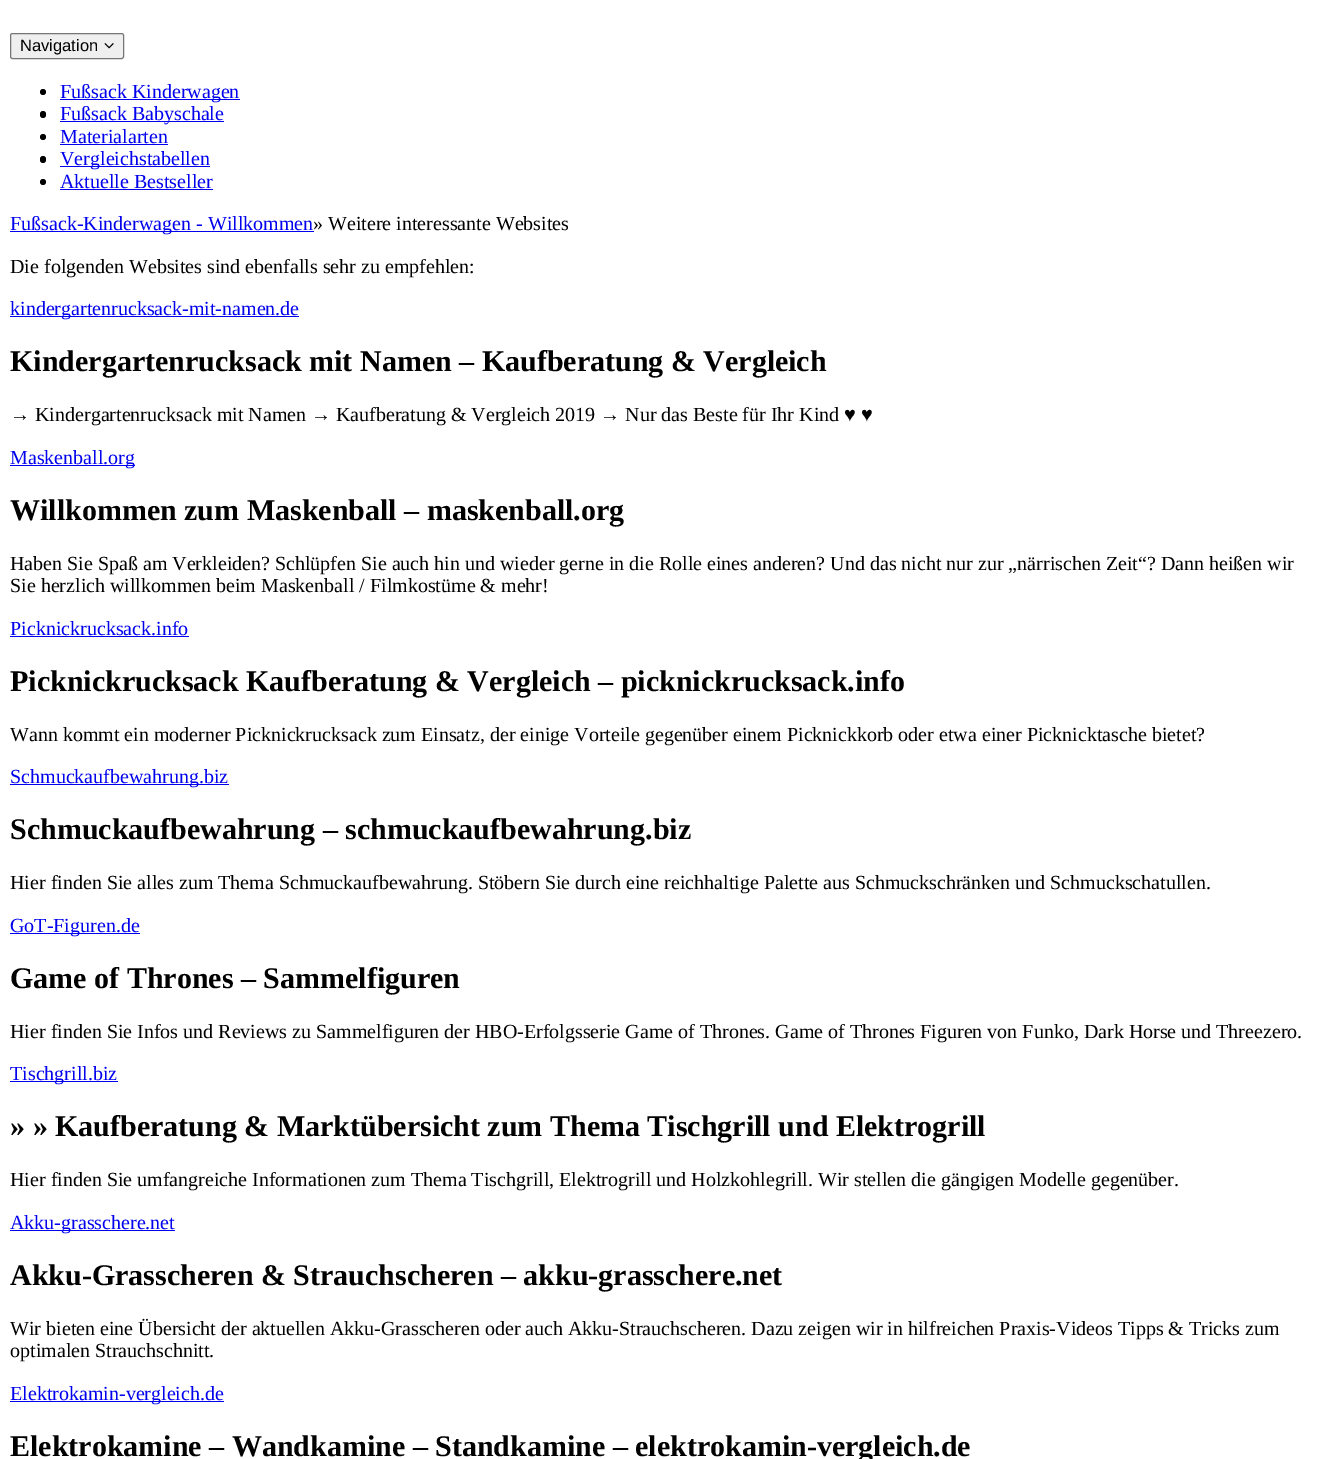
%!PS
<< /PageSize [1332 1459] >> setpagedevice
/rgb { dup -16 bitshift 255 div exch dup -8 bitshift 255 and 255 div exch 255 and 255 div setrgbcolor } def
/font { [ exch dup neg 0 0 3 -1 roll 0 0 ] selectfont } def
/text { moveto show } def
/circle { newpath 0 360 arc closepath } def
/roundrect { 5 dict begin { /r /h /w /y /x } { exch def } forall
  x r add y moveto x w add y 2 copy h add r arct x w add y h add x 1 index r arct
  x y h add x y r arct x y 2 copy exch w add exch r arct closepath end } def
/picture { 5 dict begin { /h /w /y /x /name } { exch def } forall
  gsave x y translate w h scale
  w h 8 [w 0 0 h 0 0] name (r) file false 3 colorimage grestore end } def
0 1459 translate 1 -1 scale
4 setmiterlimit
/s1 { /LiberationSans-Regular 16.5 font 16#000000 rgb } def
/s2 { /LiberationSerif-Regular 20 font 16#0000EE rgb } def
/s3 { /LiberationSerif-Regular 20 font 16#000000 rgb } def
/s4 { /LiberationSerif-Bold 30 font 16#000000 rgb } def
16#FFFFFF rgb
0 0 1332 1459 rectfill
16#EFEFEF rgb
10.5 33.5 113 25 2 roundrect gsave fill grestore
16#767676 rgb
stroke
s1
(Navigation) 20 51 text
(pic1.raw) 104 43 10 6 picture
43 92 3 circle fill
16#0000EE rgb
60 99 180 1 rectfill
s2
(Fußsack Kinderwagen) 60 98 text
16#000000 rgb
40 111 6 7 3 roundrect fill
16#0000EE rgb
60 121 164 1 rectfill
(Fußsack Babyschale) 60 120 text
16#000000 rgb
43 137 3 circle fill
s2
(Materialarten) 60 143 text
60 144 108 1 rectfill
16#000000 rgb
40 156 6 7 3 roundrect fill
16#0000EE rgb
60 166 150 1 rectfill
(Vergleichstabellen) 60 165 text
16#000000 rgb
43 182 3 circle fill
s2
(Aktuelle Bestseller) 60 188 text
60 189 153 1 rectfill
10 231 304 1 rectfill
(Fußsack-Kinderwagen - Willkommen) 10 230 text
s3
(» Weitere interessante Websites) 313 230 text
(Die folgenden Websites sind ebenfalls sehr zu empfehlen:) 10 273 text
16#0000EE rgb
10 316 289 1 rectfill
(kindergartenrucksack-mit-namen.de) 10 315 text
s4
(Kindergartenrucksack mit Namen – Kaufberatung & Vergleich) 10 371 text
s3
(→ Kindergartenrucksack mit Namen → Kaufberatung & Vergleich 2019 → Nur das Beste für Ihr Kind ♥ ♥) 10 421 text
16#0000EE rgb
10 465 125 1 rectfill
(Maskenball.org) 10 464 text
s4
(Willkommen zum Maskenball – maskenball.org) 10 520 text
s3
(Haben Sie Spaß am Verkleiden? Schlüpfen Sie auch hin und wieder gerne in die Rolle eines anderen? Und das nicht nur zur „närrischen Zeit“? Dann heißen wir) 10 570 text
(Sie herzlich willkommen beim Maskenball / Filmkostüme & mehr!) 10 592 text
s2
(Picknickrucksack.info) 10 635 text
10 636 179 1 rectfill
s4
(Picknickrucksack Kaufberatung & Vergleich – picknickrucksack.info) 10 691 text
s3
(Wann kommt ein moderner Picknickrucksack zum Einsatz, der einige Vorteile gegenüber einem Picknickkorb oder etwa einer Picknicktasche bietet?) 10 741 text
16#0000EE rgb
10 784 219 1 rectfill
(Schmuckaufbewahrung.biz) 10 783 text
s4
(Schmuckaufbewahrung – schmuckaufbewahrung.biz) 10 839 text
s3
(Hier finden Sie alles zum Thema Schmuckaufbewahrung. Stöbern Sie durch eine reichhaltige Palette aus Schmuckschränken und Schmuckschatullen.) 10 889 text
16#0000EE rgb
10 933 130 1 rectfill
(GoT-Figuren.de) 10 932 text
s4
(Game of Thrones – Sammelfiguren) 10 988 text
s3
(Hier finden Sie Infos und Reviews zu Sammelfiguren der HBO-Erfolgsserie Game of Thrones. Game of Thrones Figuren von Funko, Dark Horse und Threezero.) 10 1038 text
16#0000EE rgb
10 1081 108 1 rectfill
(Tischgrill.biz) 10 1080 text
s4
(» » Kaufberatung & Marktübersicht zum Thema Tischgrill und Elektrogrill) 10 1136 text
s3
(Hier finden Sie umfangreiche Informationen zum Thema Tischgrill, Elektrogrill und Holzkohlegrill. Wir stellen die gängigen Modelle gegenüber.) 10 1186 text
16#0000EE rgb
10 1230 165 1 rectfill
(Akku-grasschere.net) 10 1229 text
s4
(Akku-Grasscheren & Strauchscheren – akku-grasschere.net) 10 1285 text
s3
(Wir bieten eine Übersicht der aktuellen Akku-Grasscheren oder auch Akku-Strauchscheren. Dazu zeigen wir in hilfreichen Praxis-Videos Tipps & Tricks zum) 10 1335 text
(optimalen Strauchschnitt.) 10 1357 text
16#0000EE rgb
10 1401 214 1 rectfill
(Elektrokamin-vergleich.de) 10 1400 text
s4
(Elektrokamine – Wandkamine – Standkamine – elektrokamin-vergleich.de) 10 1456 text
showpage
